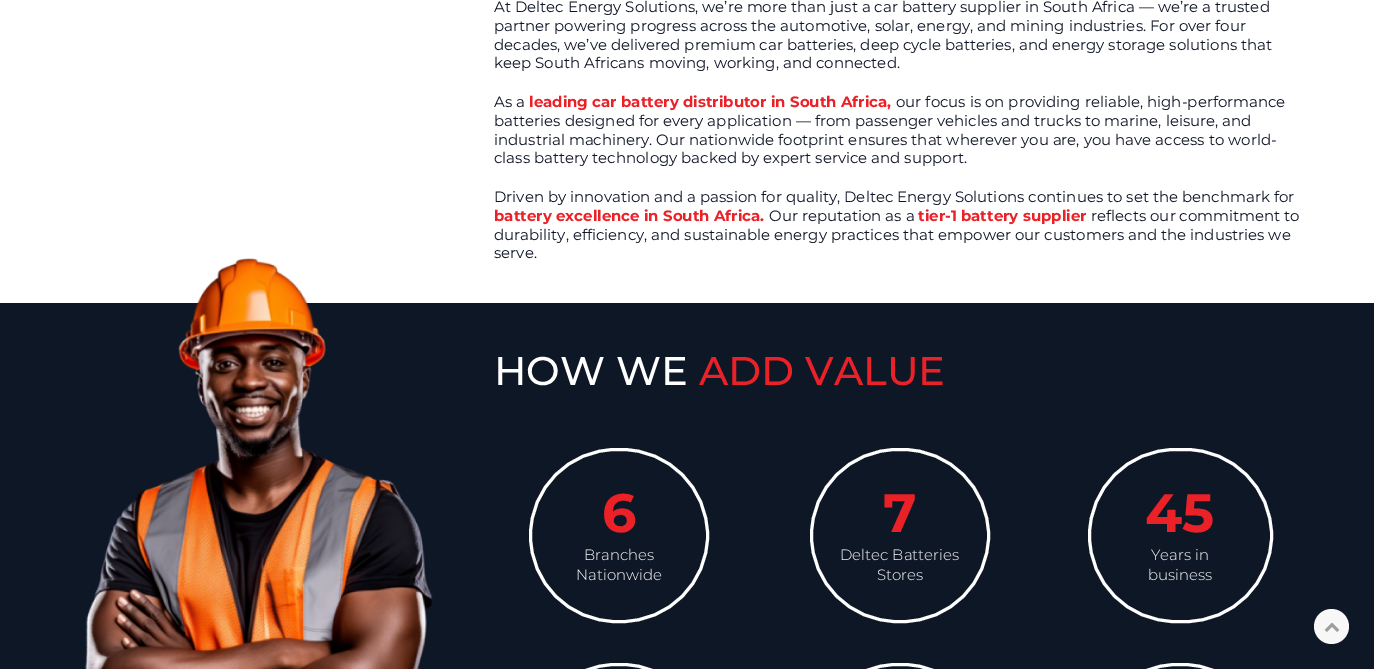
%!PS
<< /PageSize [1374 669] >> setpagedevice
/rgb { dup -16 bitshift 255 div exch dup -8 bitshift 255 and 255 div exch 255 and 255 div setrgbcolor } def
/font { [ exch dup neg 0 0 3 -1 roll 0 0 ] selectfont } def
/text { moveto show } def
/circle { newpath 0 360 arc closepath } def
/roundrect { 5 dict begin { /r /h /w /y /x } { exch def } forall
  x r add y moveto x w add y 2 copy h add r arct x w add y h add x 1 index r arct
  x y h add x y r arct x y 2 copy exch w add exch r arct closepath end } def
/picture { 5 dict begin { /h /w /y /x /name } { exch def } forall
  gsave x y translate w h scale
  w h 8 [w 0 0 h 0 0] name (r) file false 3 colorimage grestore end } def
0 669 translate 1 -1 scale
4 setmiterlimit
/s1 { /Montserrat-Regular 15 font 16#0E1526 rgb } def
/s2 { /Montserrat-Bold 15 font 16#EB2128 rgb } def
/s3 { /Montserrat-Medium 40 font 16#FFFFFF rgb } def
/s4 { /Montserrat-Medium 40 font 16#EB2128 rgb } def
/s5 { /Montserrat-Bold 54 font 16#EB2128 rgb } def
/s6 { /Montserrat-Light 15 font 16#FFFFFF rgb } def
16#FFFFFF rgb
0 0 1374 669 rectfill
s1
(At Deltec Energy Solutions, we’re more than just a car battery supplier in South Africa — we’re a trusted) 494 12 text
(partner powering progress across the automotive, solar, energy, and mining industries. For over four) 494 31 text
(decades, we’ve delivered premium car batteries, deep cycle batteries, and energy storage solutions that) 494 50 text
(keep South Africans moving, working, and connected.) 494 68 text
(As a) 494 107 text
s2
(leading car battery distributor in South Africa,) 529 107 text
s1
(our focus is on providing reliable, high-performance) 896 107 text
(batteries designed for every application — from passenger vehicles and trucks to marine, leisure, and) 494 126 text
(industrial machinery. Our nationwide footprint ensures that wherever you are, you have access to world-) 494 145 text
(class battery technology backed by expert service and support.) 494 163 text
(Driven by innovation and a passion for quality, Deltec Energy Solutions continues to set the benchmark for) 494 202 text
s2
(battery excellence in South Africa.) 494 221 text
s1
(Our reputation as a) 769 221 text
s2
(tier-1 battery supplier) 918 221 text
s1
(reflects our commitment to) 1091 221 text
(durability, efficiency, and sustainable energy practices that empower our customers and the industries we) 494 240 text
(serve.) 494 258 text
16#0D1726 rgb
0 303 1374 366 rectfill
(pic1.raw) 84 258 349 411 picture
s3
(HOW WE) 494 385 text
s4
(ADD VALUE) 699 385 text
16#FFFFFF rgb
3 setlinewidth
530.5 449.5 177 172 86 roundrect stroke
s5
(6) 602 532 text
s6
(Branches) 584 560 text
(Nationwide) 576 580 text
811.5 449.5 177 172 86 roundrect stroke
s5
(7) 883 532 text
s6
(Deltec Batteries) 840 560 text
(Stores) 877 580 text
1089.5 449.5 182 172 86 roundrect stroke
s5
(45) 1145 532 text
s6
(Years in) 1151 560 text
(business) 1148 580 text
530.5 664.5 177 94 86 roundrect stroke
811.5 664.5 177 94 86 roundrect stroke
1091.5 664.5 177 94 86 roundrect stroke
16#F7F7F7 rgb
1331.5 626.5 17.5 circle fill
(pic2.raw) 1324 622 16 10 picture
showpage
